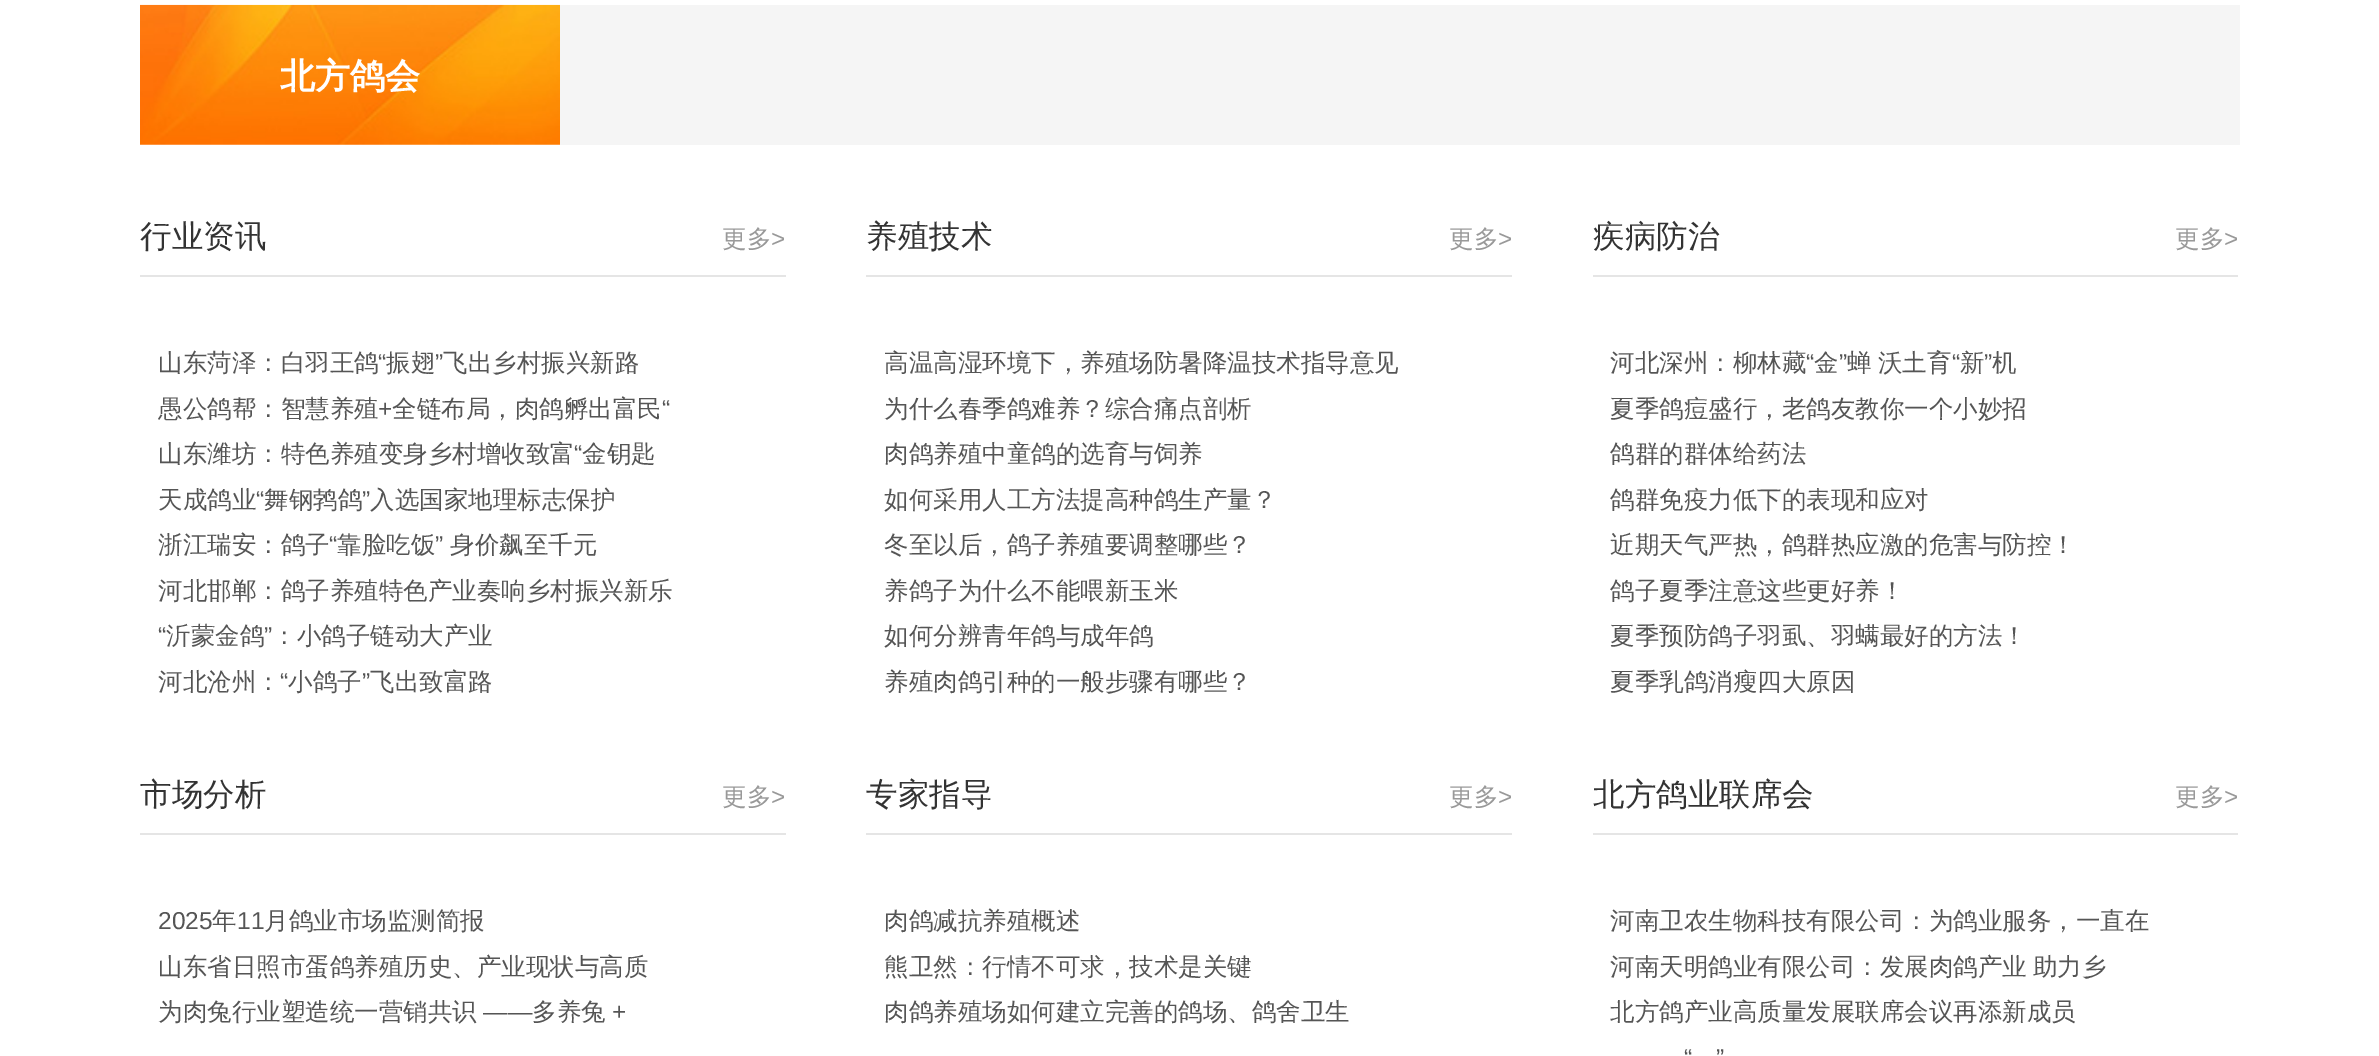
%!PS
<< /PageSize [2379 1056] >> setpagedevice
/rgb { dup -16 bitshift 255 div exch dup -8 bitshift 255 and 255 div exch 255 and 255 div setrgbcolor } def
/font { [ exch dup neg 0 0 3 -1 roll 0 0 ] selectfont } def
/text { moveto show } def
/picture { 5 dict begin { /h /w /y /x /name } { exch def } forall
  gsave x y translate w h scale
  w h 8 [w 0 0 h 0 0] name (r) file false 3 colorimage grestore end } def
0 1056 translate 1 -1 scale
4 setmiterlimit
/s1 { /WenQuanYiZenHei-Bold 35 font 16#FFFFFF rgb } def
/s2 { /WenQuanYiZenHei-Medium 31.5 font 16#333333 rgb } def
/s3 { /WenQuanYiZenHei-Medium 24.5 font 16#999999 rgb } def
/s4 { /LiberationSans-Regular 24.5 font 16#999999 rgb } def
/s5 { /WenQuanYiZenHei-Medium 24.5 font 16#555555 rgb } def
/s6 { /LiberationSans-Regular 24.5 font 16#555555 rgb } def
16#FFFFFF rgb
0 0 2379 1056 rectfill
(pic1.raw) 140 4 420 141 picture
s1
(北方鸽会) 280 88 text
16#F5F5F5 rgb
560 5 1680 140 rectfill
16#E5E5E5 rgb
140 275 646 2 rectfill
s2
(行业资讯) 140 247 text
s3
(更多) 722 247 text
s4
(>) 771 247 text
s5
(山东菏泽：白羽王鸽) 158 371 text
s6
(“) 378 371 text
s5
(振翅) 386 371 text
s6
(”) 435 371 text
s5
(飞出乡村振兴新路) 443 371 text
(愚公鸽帮：智慧养殖) 158 417 text
s6
(+) 378 417 text
s5
(全链布局，肉鸽孵出富民) 392 417 text
s6
(“) 662 417 text
s5
(山东潍坊：特色养殖变身乡村增收致富) 158 462 text
s6
(“) 574 462 text
s5
(金钥匙) 582 462 text
(天成鸽业) 158 508 text
s6
(“) 256 508 text
s5
(舞钢鹁鸽) 264 508 text
s6
(”) 362 508 text
s5
(入选国家地理标志保护) 370 508 text
(浙江瑞安：鸽子) 158 553 text
s6
(“) 329 553 text
s5
(靠脸吃饭) 337 553 text
s6
(”) 435 553 text
s5
(身价飙至千元) 450 553 text
(河北邯郸：鸽子养殖特色产业奏响乡村振兴新乐) 158 599 text
s6
(“) 158 644 text
s5
(沂蒙金鸽) 166 644 text
s6
(”) 264 644 text
s5
(：小鸽子链动大产业) 272 644 text
(河北沧州：) 158 690 text
s6
(“) 280 690 text
s5
(小鸽子) 288 690 text
s6
(”) 362 690 text
s5
(飞出致富路) 370 690 text
16#E5E5E5 rgb
866 275 646 2 rectfill
s2
(养殖技术) 866 247 text
s3
(更多) 1449 247 text
s4
(>) 1498 247 text
s5
(高温高湿环境下，养殖场防暑降温技术指导意见) 884 371 text
(为什么春季鸽难养？综合痛点剖析) 884 417 text
(肉鸽养殖中童鸽的选育与饲养) 884 462 text
(如何采用人工方法提高种鸽生产量？) 884 508 text
(冬至以后，鸽子养殖要调整哪些？) 884 553 text
(养鸽子为什么不能喂新玉米) 884 599 text
(如何分辨青年鸽与成年鸽) 884 644 text
(养殖肉鸽引种的一般步骤有哪些？) 884 690 text
16#E5E5E5 rgb
1593 275 645 2 rectfill
s2
(疾病防治) 1593 247 text
s3
(更多) 2175 247 text
s4
(>) 2224 247 text
s5
(河北深州：柳林藏) 1610 371 text
s6
(“) 1806 371 text
s5
(金) 1814 371 text
s6
(”) 1839 371 text
/WenQuanYiZenHei-Medium 24.5 font
1847 371 moveto -1 0 32 (蝉 沃土育) widthshow
s6
(“) 1952 371 text
s5
(新) 1960 371 text
s6
(”) 1984 371 text
s5
(机) 1992 371 text
(夏季鸽痘盛行，老鸽友教你一个小妙招) 1610 417 text
(鸽群的群体给药法) 1610 462 text
(鸽群免疫力低下的表现和应对) 1610 508 text
(近期天气严热，鸽群热应激的危害与防控！) 1610 553 text
(鸽子夏季注意这些更好养！) 1610 599 text
(夏季预防鸽子羽虱、羽螨最好的方法！) 1610 644 text
(夏季乳鸽消瘦四大原因) 1610 690 text
16#E5E5E5 rgb
140 833 646 2 rectfill
s2
(市场分析) 140 805 text
s3
(更多) 722 805 text
s4
(>) 771 805 text
s6
(2025) 158 929 text
s5
(年) 212 929 text
s6
(11) 237 929 text
s5
(月鸽业市场监测简报) 264 929 text
(山东省日照市蛋鸽养殖历史、产业现状与高质) 158 975 text
(为肉兔行业塑造统一营销共识) 158 1020 text
s6
(——) 483 1020 text
s5
(多养兔) 532 1020 text
s6
(+) 612 1020 text
16#E5E5E5 rgb
866 833 646 2 rectfill
s2
(专家指导) 866 805 text
s3
(更多) 1449 805 text
s4
(>) 1498 805 text
s5
(肉鸽减抗养殖概述) 884 929 text
(熊卫然：行情不可求，技术是关键) 884 975 text
(肉鸽养殖场如何建立完善的鸽场、鸽舍卫生) 884 1020 text
16#E5E5E5 rgb
1593 833 645 2 rectfill
s2
(北方鸽业联席会) 1593 805 text
s3
(更多) 2175 805 text
s4
(>) 2224 805 text
s5
(河南卫农生物科技有限公司：为鸽业服务，一直在) 1610 929 text
1610 975 moveto -1 0 32 (河南天明鸽业有限公司：发展肉鸽产业 助力乡) widthshow
(北方鸽产业高质量发展联席会议再添新成员) 1610 1020 text
s6
(“) 1684 1066 text
(”) 1716 1066 text
showpage
